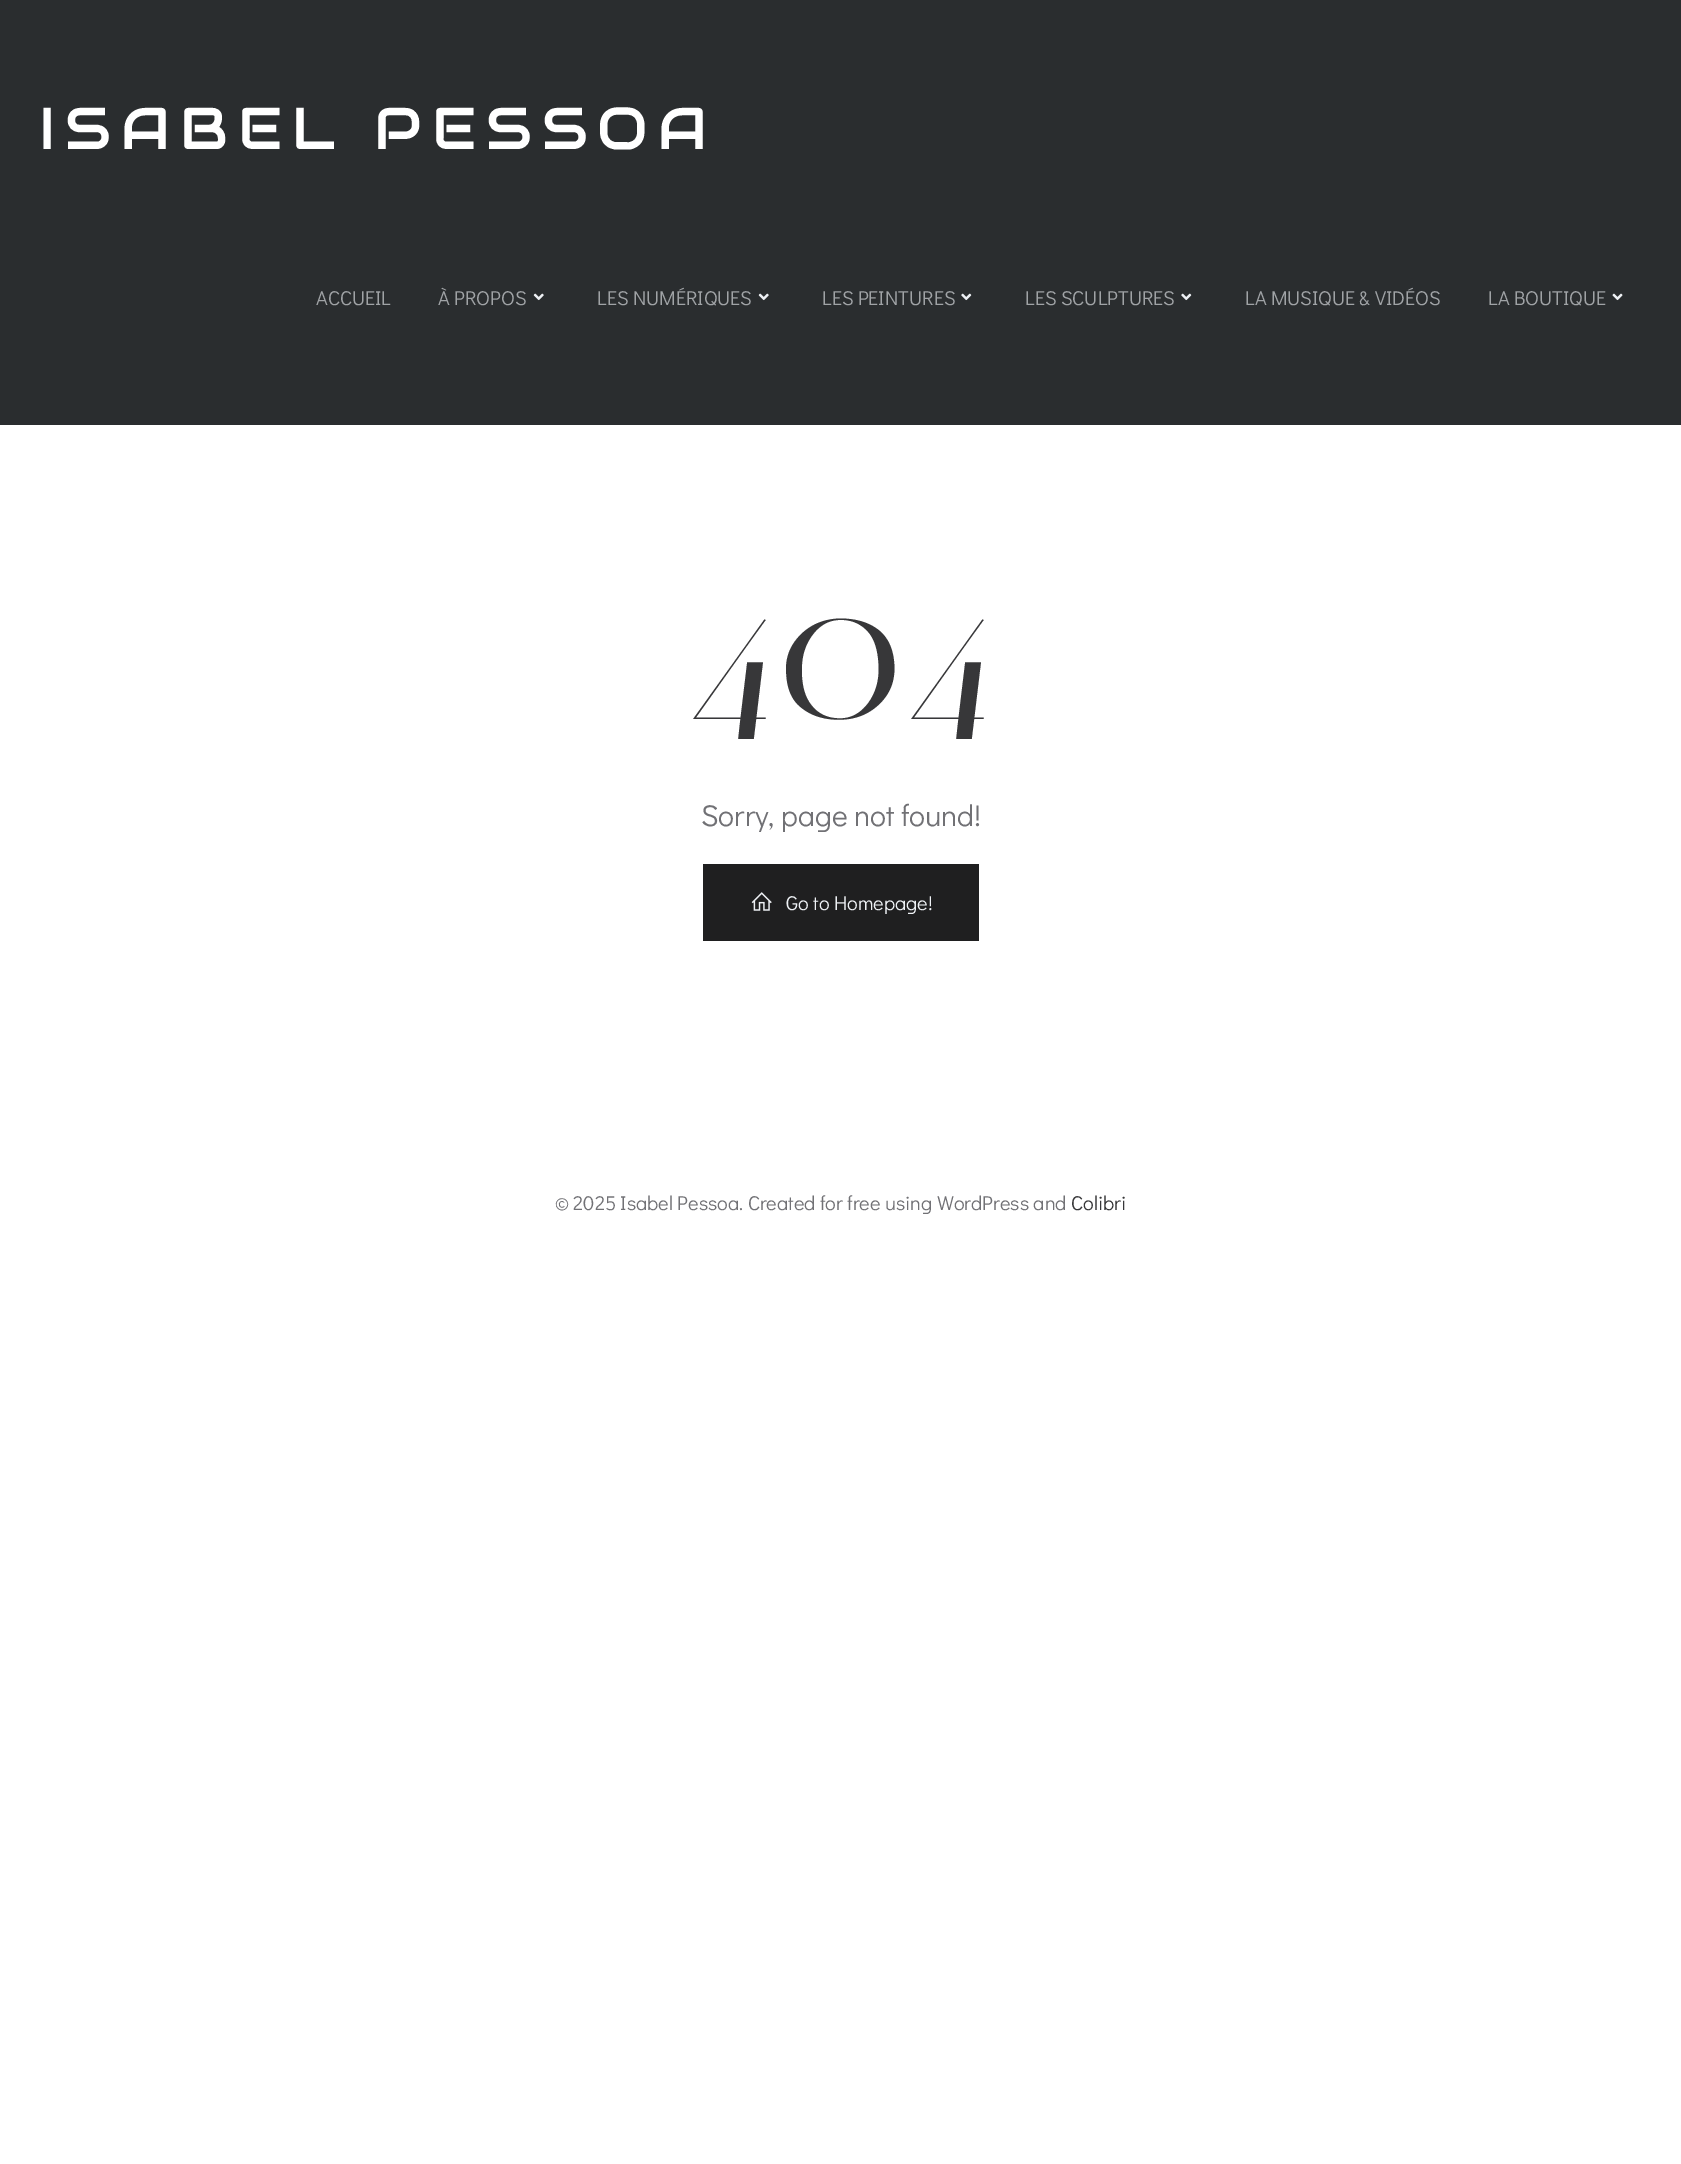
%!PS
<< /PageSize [1681 2164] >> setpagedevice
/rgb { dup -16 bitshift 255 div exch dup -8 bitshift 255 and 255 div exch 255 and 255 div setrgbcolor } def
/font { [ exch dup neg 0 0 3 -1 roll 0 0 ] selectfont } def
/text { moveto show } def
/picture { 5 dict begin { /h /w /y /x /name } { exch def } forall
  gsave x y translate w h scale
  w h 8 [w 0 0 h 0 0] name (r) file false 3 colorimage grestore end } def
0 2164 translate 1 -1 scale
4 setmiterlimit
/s1 { /DidactGothic-Regular 20 font 16#A0A3A6 rgb } def
/s2 { /Italiana-Regular 200 font 16#373739 rgb } def
/s3 { /DidactGothic-Regular 30 font 16#717175 rgb } def
/s4 { /DidactGothic-Regular 20 font 16#EEF1F5 rgb } def
/s5 { /DidactGothic-Regular 20 font 16#717175 rgb } def
/s6 { /DidactGothic-Regular 20 font 16#373739 rgb } def
16#FFFFFF rgb
0 0 1681 2164 rectfill
16#2A2D2F rgb
0 0 1681 425 rectfill
/Audiowide-Regular 58.75 font
16#FFFFFF rgb
39 149 moveto 10 0 (ISABEL PESSOA) ashow
s1
(ACCUEIL) 316 305 text
(À PROPOS) 438 305 text
(pic1.raw) 533 293 11 8 picture
(LES NUMÉRIQUES) 597 305 text
(pic1.raw) 758 293 11 8 picture
(LES PEINTURES) 822 305 text
(pic2.raw) 961 293 11 8 picture
(LES SCULPTURES) 1025 305 text
(pic2.raw) 1181 293 11 8 picture
(LA MUSIQUE & VIDÉOS) 1245 305 text
(LA BOUTIQUE) 1488 305 text
(pic3.raw) 1612 293 11 8 picture
s2
(404) 687 719 text
s3
(Sorry, page not found!) 701 826 text
16#1F1F20 rgb
703 864 276 77 rectfill
(pic4.raw) 751 892 21 19 picture
s4
(Go to Homepage!) 786 910 text
s5
(© 2025 Isabel Pessoa. Created for free using WordPress and) 555 1210 text
s6
(Colibri) 1071 1210 text
showpage
